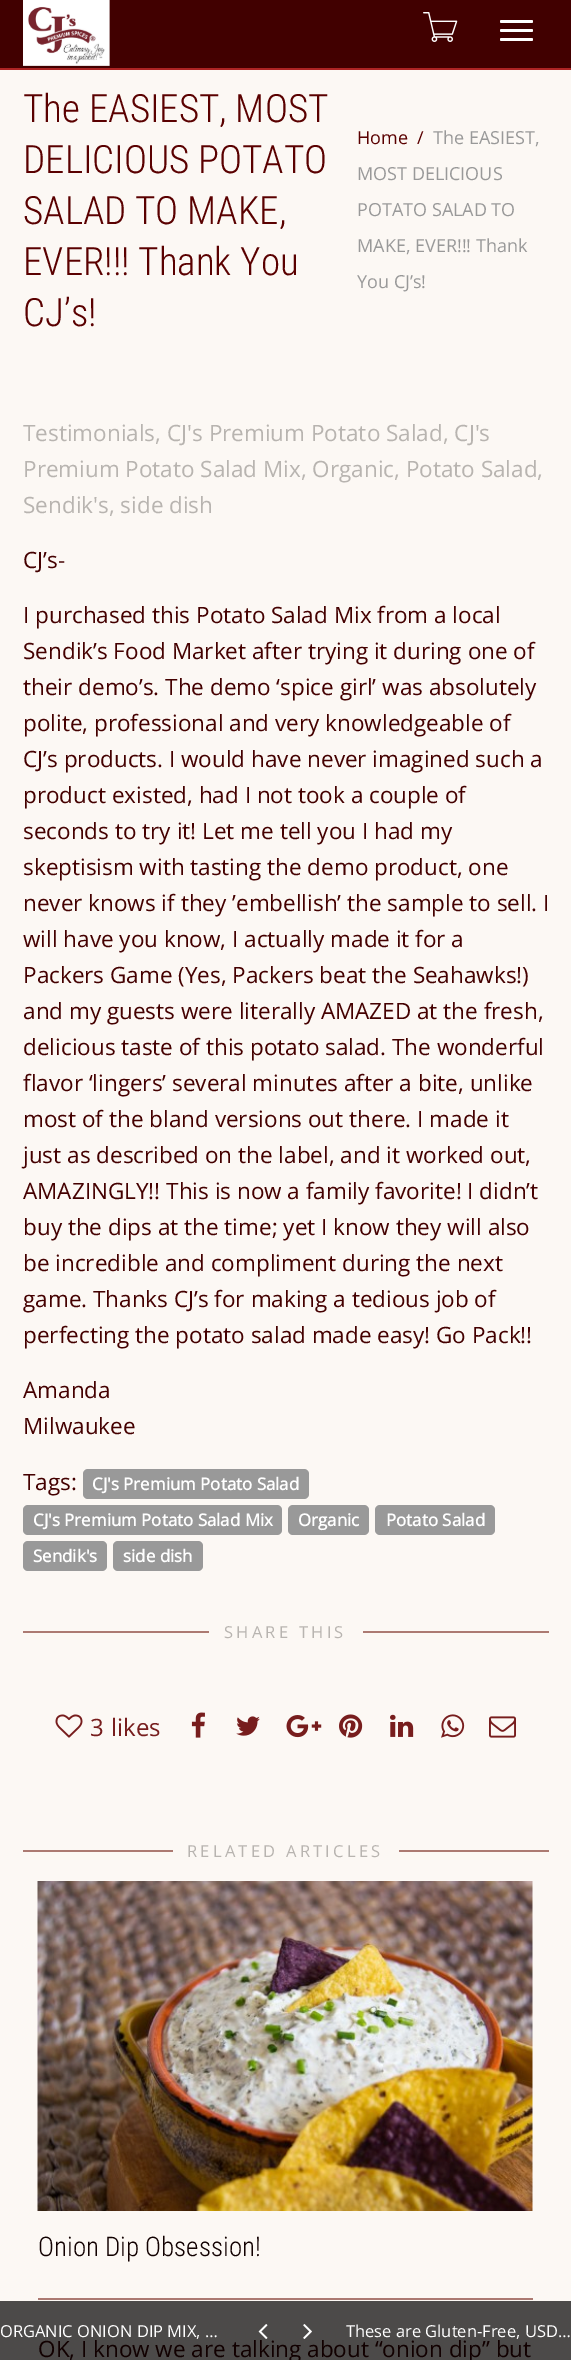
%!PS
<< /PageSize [571 2360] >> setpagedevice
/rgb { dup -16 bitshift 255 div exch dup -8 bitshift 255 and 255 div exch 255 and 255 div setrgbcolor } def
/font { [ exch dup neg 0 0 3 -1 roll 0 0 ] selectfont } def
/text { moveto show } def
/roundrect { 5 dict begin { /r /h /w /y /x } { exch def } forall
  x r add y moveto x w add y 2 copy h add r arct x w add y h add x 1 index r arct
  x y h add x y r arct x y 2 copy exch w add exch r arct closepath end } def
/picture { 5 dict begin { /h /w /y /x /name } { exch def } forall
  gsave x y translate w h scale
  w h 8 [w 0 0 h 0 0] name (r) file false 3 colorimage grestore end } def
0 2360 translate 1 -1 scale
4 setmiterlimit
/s1 { /RobotoCondensed-Light 39 font 16#5A0000 rgb } def
/s2 { /OpenSans-Regular 18 font 16#5A0000 rgb } def
/s3 { /OpenSans-Regular 18 font 16#999999 rgb } def
/s4 { /OpenSans-Regular 22.5 font 16#B8B4B0 rgb } def
/s5 { /OpenSans-Regular 22.5 font 16#440000 rgb } def
/s6 { /OpenSans-Bold 16.9 font 16#FFFFFF rgb } def
/s7 { /OpenSans-Regular 24 font 16#771D1D rgb } def
/s8 { /RobotoCondensed-Light 27 font 16#110000 rgb } def
/s9 { /OpenSans-Regular 22.5 font 16#110000 rgb } def
/s10 { /OpenSans-Regular 16.5 font 16#FFFFFF rgb } def
16#FCF8F4 rgb
0 0 571 2360 rectfill
16#410000 rgb
0 0 571 68 rectfill
16#AD2424 rgb
0 68 571 2 rectfill
(pic1.raw) 23 0 87 66 picture
(pic2.raw) 423 12 35 30 picture
16#FFFFFF rgb
500 20 33 3 1.5 roundrect fill
500 29 33 3 1.5 roundrect fill
500 38 33 3 1.5 roundrect fill
16#4C4A49 rgb
0 2301 571 59 rectfill
s1
(The EASIEST, MOST) 23 122 text
(DELICIOUS POTATO) 23 173 text
(SALAD TO MAKE,) 23 224 text
(EVER!!! Thank You) 23 275 text
(CJ’s!) 23 326 text
s2
(Home) 357 144 text
(/) 417 144 text
s3
(The EASIEST,) 433 144 text
(MOST DELICIOUS) 357 180 text
(POTATO SALAD TO) 357 216 text
(MAKE, EVER!!! Thank) 357 252 text
(You CJ’s!) 357 288 text
s4
(Testimonials, CJ's Premium Potato Salad, CJ's) 23 441 text
(Premium Potato Salad Mix, Organic, Potato Salad,) 23 477 text
(Sendik's, side dish) 23 513 text
s5
(CJ’s-) 23 568 text
(I purchased this Potato Salad Mix from a local) 23 623 text
(Sendik’s Food Market after trying it during one of) 23 659 text
(their demo’s. The demo ‘spice girl’ was absolutely) 23 695 text
(polite, professional and very knowledgeable of) 23 731 text
(CJ’s products. I would have never imagined such a) 23 767 text
(product existed, had I not took a couple of) 23 803 text
(seconds to try it! Let me tell you I had my) 23 839 text
(skeptisism with tasting the demo product, one) 23 875 text
(never knows if they ’embellish’ the sample to sell. I) 23 911 text
(will have you know, I actually made it for a) 23 947 text
(Packers Game \(Yes, Packers beat the Seahawks!\)) 23 983 text
(and my guests were literally AMAZED at the fresh,) 23 1019 text
(delicious taste of this potato salad. The wonderful) 23 1055 text
(flavor ‘lingers’ several minutes after a bite, unlike) 23 1091 text
(most of the bland versions out there. I made it) 23 1127 text
(just as described on the label, and it worked out,) 23 1163 text
(AMAZINGLY!! This is now a family favorite! I didn’t) 23 1199 text
(buy the dips at the time; yet I know they will also) 23 1235 text
(be incredible and compliment during the next) 23 1271 text
(game. Thanks CJ’s for making a tedious job of) 23 1307 text
(perfecting the potato salad made easy! Go Pack!!) 23 1343 text
(Amanda) 23 1398 text
(Milwaukee) 23 1434 text
(Tags:) 23 1490 text
16#999999 rgb
83 1469 226 30 5 roundrect fill
s6
(CJ's Premium Potato Salad) 92 1490 text
16#999999 rgb
23 1505 259 30 5 roundrect fill
s6
(CJ's Premium Potato Salad Mix) 33 1526 text
16#999999 rgb
288 1505 81 30 5 roundrect fill
s6
(Organic) 298 1526 text
16#999999 rgb
375 1505 120 30 5 roundrect fill
s6
(Potato Salad) 386 1526 text
16#999999 rgb
23 1541 84 30 5 roundrect fill
s6
(Sendik's) 33 1562 text
16#999999 rgb
113 1541 90 30 5 roundrect fill
s6
(side dish) 123 1562 text
16#AC7A72 rgb
23 1631 526 2 rectfill
16#FCF8F4 rgb
209 1617 154 29 3 roundrect fill
/OpenSans-Regular 16.5 font
16#B8B4B0 rgb
224 1638 moveto 3.25 0 (SHARE THIS) ashow
(pic3.raw) 55 1714 28 24 picture
s7
(3) 90 1736 text
(likes) 111 1736 text
(pic4.raw) 191 1712 14 26 picture
(pic5.raw) 236 1716 24 20 picture
(pic6.raw) 286 1715 36 23 picture
(pic7.raw) 339 1714 24 24 picture
(pic8.raw) 390 1714 24 23 picture
(pic9.raw) 441 1714 24 24 picture
(pic10.raw) 489 1716 27 22 picture
16#AC7A72 rgb
23 1850 526 2 rectfill
16#FCF8F4 rgb
173 1836 226 29 3 roundrect fill
/OpenSans-Regular 16.5 font
16#B8B4B0 rgb
187 1857 moveto 3.25 0 (RELATED ARTICLES) ashow
(pic11.raw) 37 1881 496 330 picture
s8
(Onion Dip Obsession!) 38 2256 text
16#AC7A72 rgb
38 2298 495 2 rectfill
s9
(OK, I know we are talking about “onion dip” but) 38 2357 text
s10
(ORGANIC ONION DIP MIX, …) 0 2337 text
(pic12.raw) 258 2324 10 15 picture
(pic13.raw) 303 2324 9 15 picture
(These are Gluten-Free, USD…) 346 2337 text
showpage
